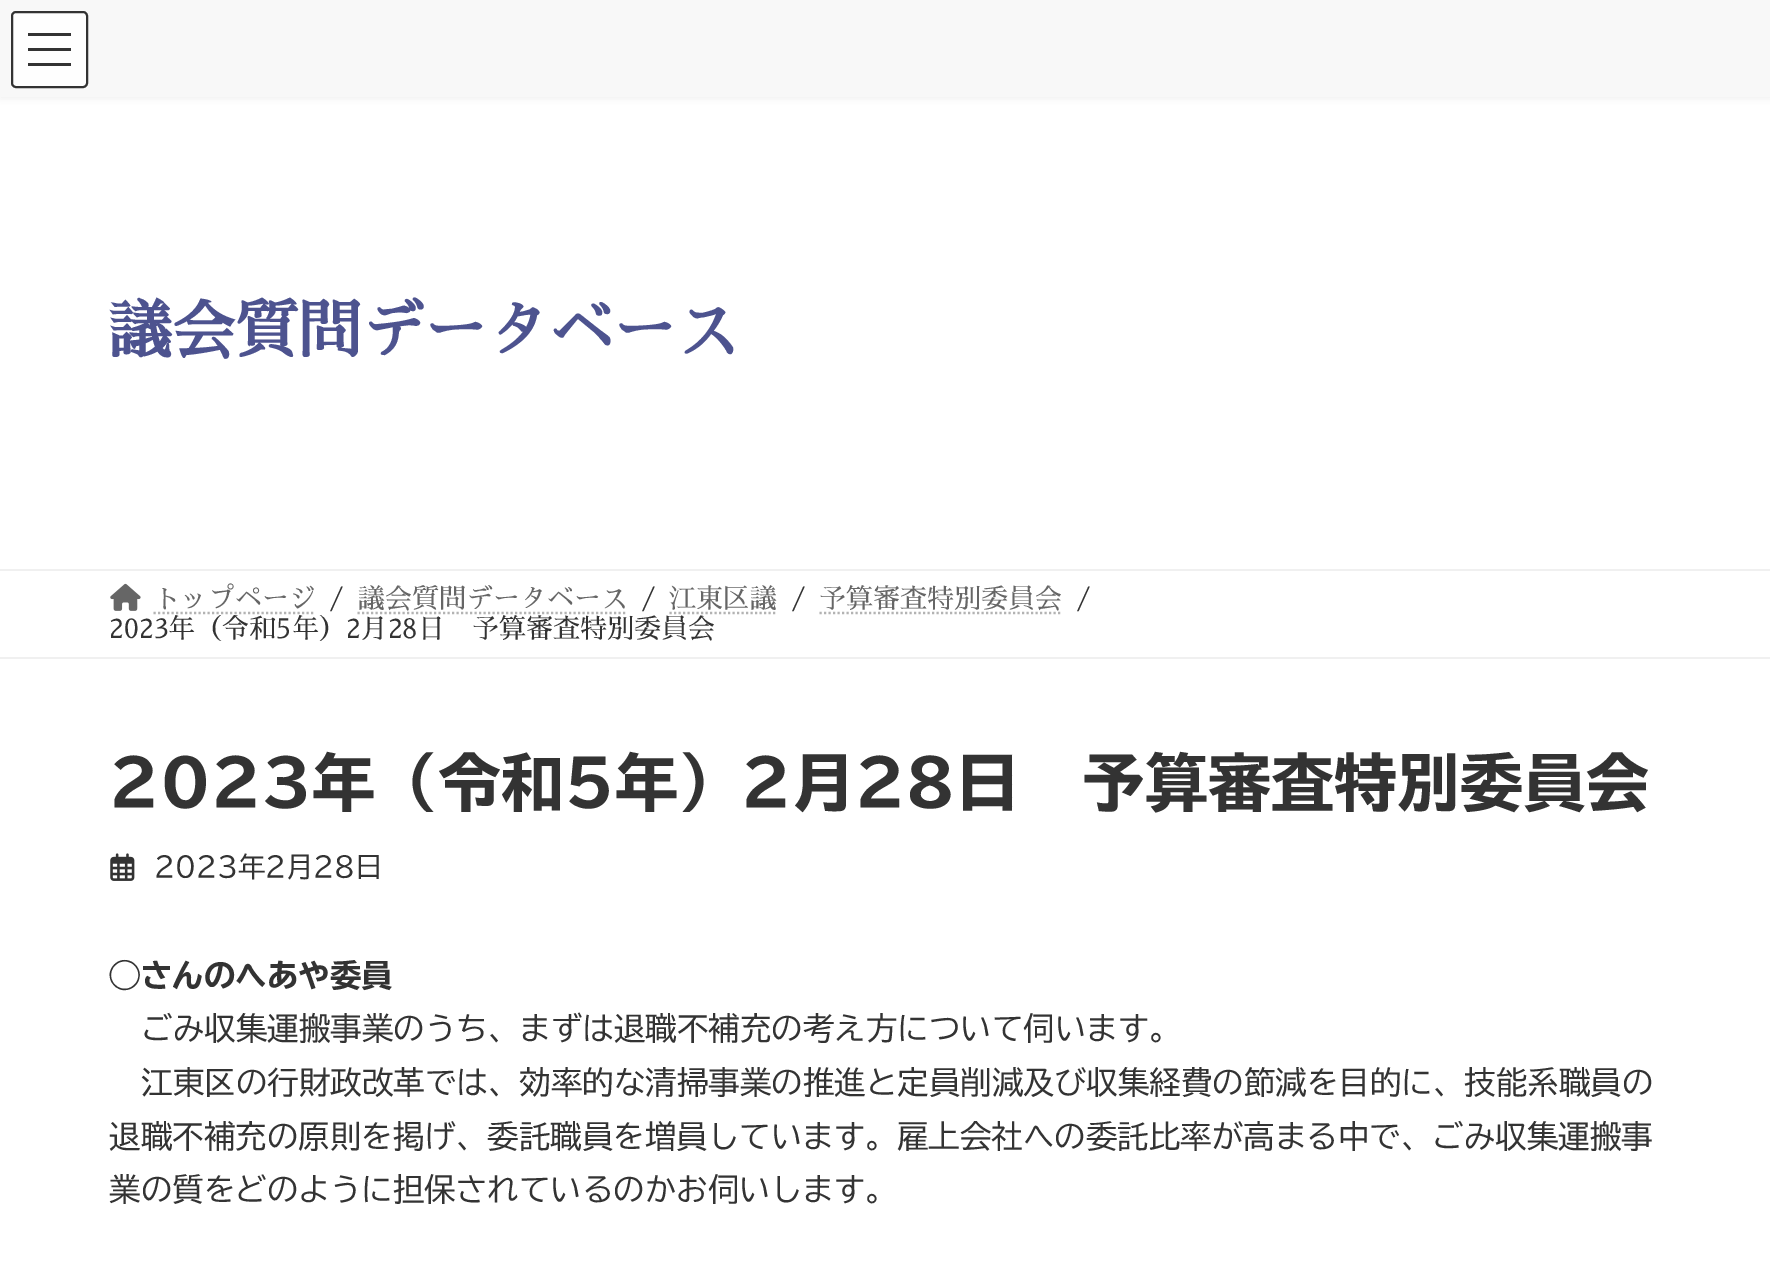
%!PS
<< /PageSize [1770 1274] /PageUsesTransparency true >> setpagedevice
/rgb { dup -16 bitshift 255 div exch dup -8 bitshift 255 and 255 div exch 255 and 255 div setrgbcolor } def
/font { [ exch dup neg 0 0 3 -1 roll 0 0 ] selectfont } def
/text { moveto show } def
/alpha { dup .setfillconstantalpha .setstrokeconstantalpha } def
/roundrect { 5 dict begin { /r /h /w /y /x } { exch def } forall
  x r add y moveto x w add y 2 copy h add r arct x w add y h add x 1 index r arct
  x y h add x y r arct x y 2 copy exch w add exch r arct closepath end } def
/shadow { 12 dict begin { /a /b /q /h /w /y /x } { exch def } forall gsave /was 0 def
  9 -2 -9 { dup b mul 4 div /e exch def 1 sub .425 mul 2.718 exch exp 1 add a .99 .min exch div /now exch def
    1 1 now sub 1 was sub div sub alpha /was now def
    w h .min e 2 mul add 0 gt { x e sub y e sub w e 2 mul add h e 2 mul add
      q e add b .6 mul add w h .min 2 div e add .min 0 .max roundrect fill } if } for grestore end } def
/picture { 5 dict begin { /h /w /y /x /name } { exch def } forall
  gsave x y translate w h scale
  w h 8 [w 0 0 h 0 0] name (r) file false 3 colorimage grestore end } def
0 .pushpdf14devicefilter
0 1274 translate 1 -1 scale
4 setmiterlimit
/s1 { /SawarabiMincho-Bold 63 font 16#4D538F rgb } def
/s2 { /SawarabiMincho-Regular 27 font 16#666666 rgb } def
/s3 { /SawarabiMincho-Regular 27 font 16#333333 rgb } def
/s4 { /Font-ExtraBold 63 font 16#333333 rgb } def
/s5 { /Font-Regular 27.5 font 16#333333 rgb } def
/s6 { /Font-ExtraBold 31.5 font 16#333333 rgb } def
/s7 { /Font-Regular 31.5 font 16#333333 rgb } def
16#FFFFFF rgb
0 0 1770 1274 rectfill
16#000000 rgb
0 2 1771 97 0 3.5 0.05 shadow
16#F8F8F8 rgb
0 0 1770 97 rectfill
16#FEFEFE rgb
11 11 77 77 5 roundrect fill
16#333333 rgb
28 33 43 3 rectfill
28 48 43 3 rectfill
28 63 43 3 rectfill
2 setlinewidth
12 12 75 75 4 roundrect stroke
s1
(議会質問データベース) 109 353 text
16#F0F0F0 rgb
0 569 1770 2 rectfill
0 657 1770 2 rectfill
(pic1.raw) 110 583 31 28 picture
s2
(トップページ) 154 608 text
16#B3B3B3 rgb
2.2 setlinewidth
[2.25 2.25] 0 setdash
153.5 613 moveto 315.5 613 lineto stroke
s3
(/) 329 608 text
s2
(議会質問データベース) 358 608 text
16#B3B3B3 rgb
357.5 613 moveto 627.5 613 lineto stroke
s3
(/) 641 608 text
s2
(江東区議) 669 608 text
16#B3B3B3 rgb
669.5 613 moveto 777.5 613 lineto stroke
s3
(/) 791 608 text
s2
(予算審査特別委員会) 819 608 text
16#B3B3B3 rgb
819.5 613 moveto 1062.5 613 lineto stroke
s3
(/) 1076 608 text
(2023年（令和5年）2月28日　予算審査特別委員会) 109 638 text
s4
(2023年（令和5年）2月28日　予算審査特別委員会) 109 806 text
(pic2.raw) 110 853 25 28 picture
s5
(2023年2月28日) 154 877 text
s6
(◯さんのへあや委員) 109 987 text
s7
(ごみ収集運搬事業のうち、まずは退職不補充の考え方について伺います。) 141 1040 text
(江東区の行財政改革では、効率的な清掃事業の推進と定員削減及び収集経費の節減を目的に、技能系職員の) 141 1094 text
(退職不補充の原則を掲げ、委託職員を増員しています。雇上会社への委託比率が高まる中で、ごみ収集運搬事) 109 1148 text
(業の質をどのように担保されているのかお伺いします。) 109 1201 text
.poppdf14devicefilter showpage
